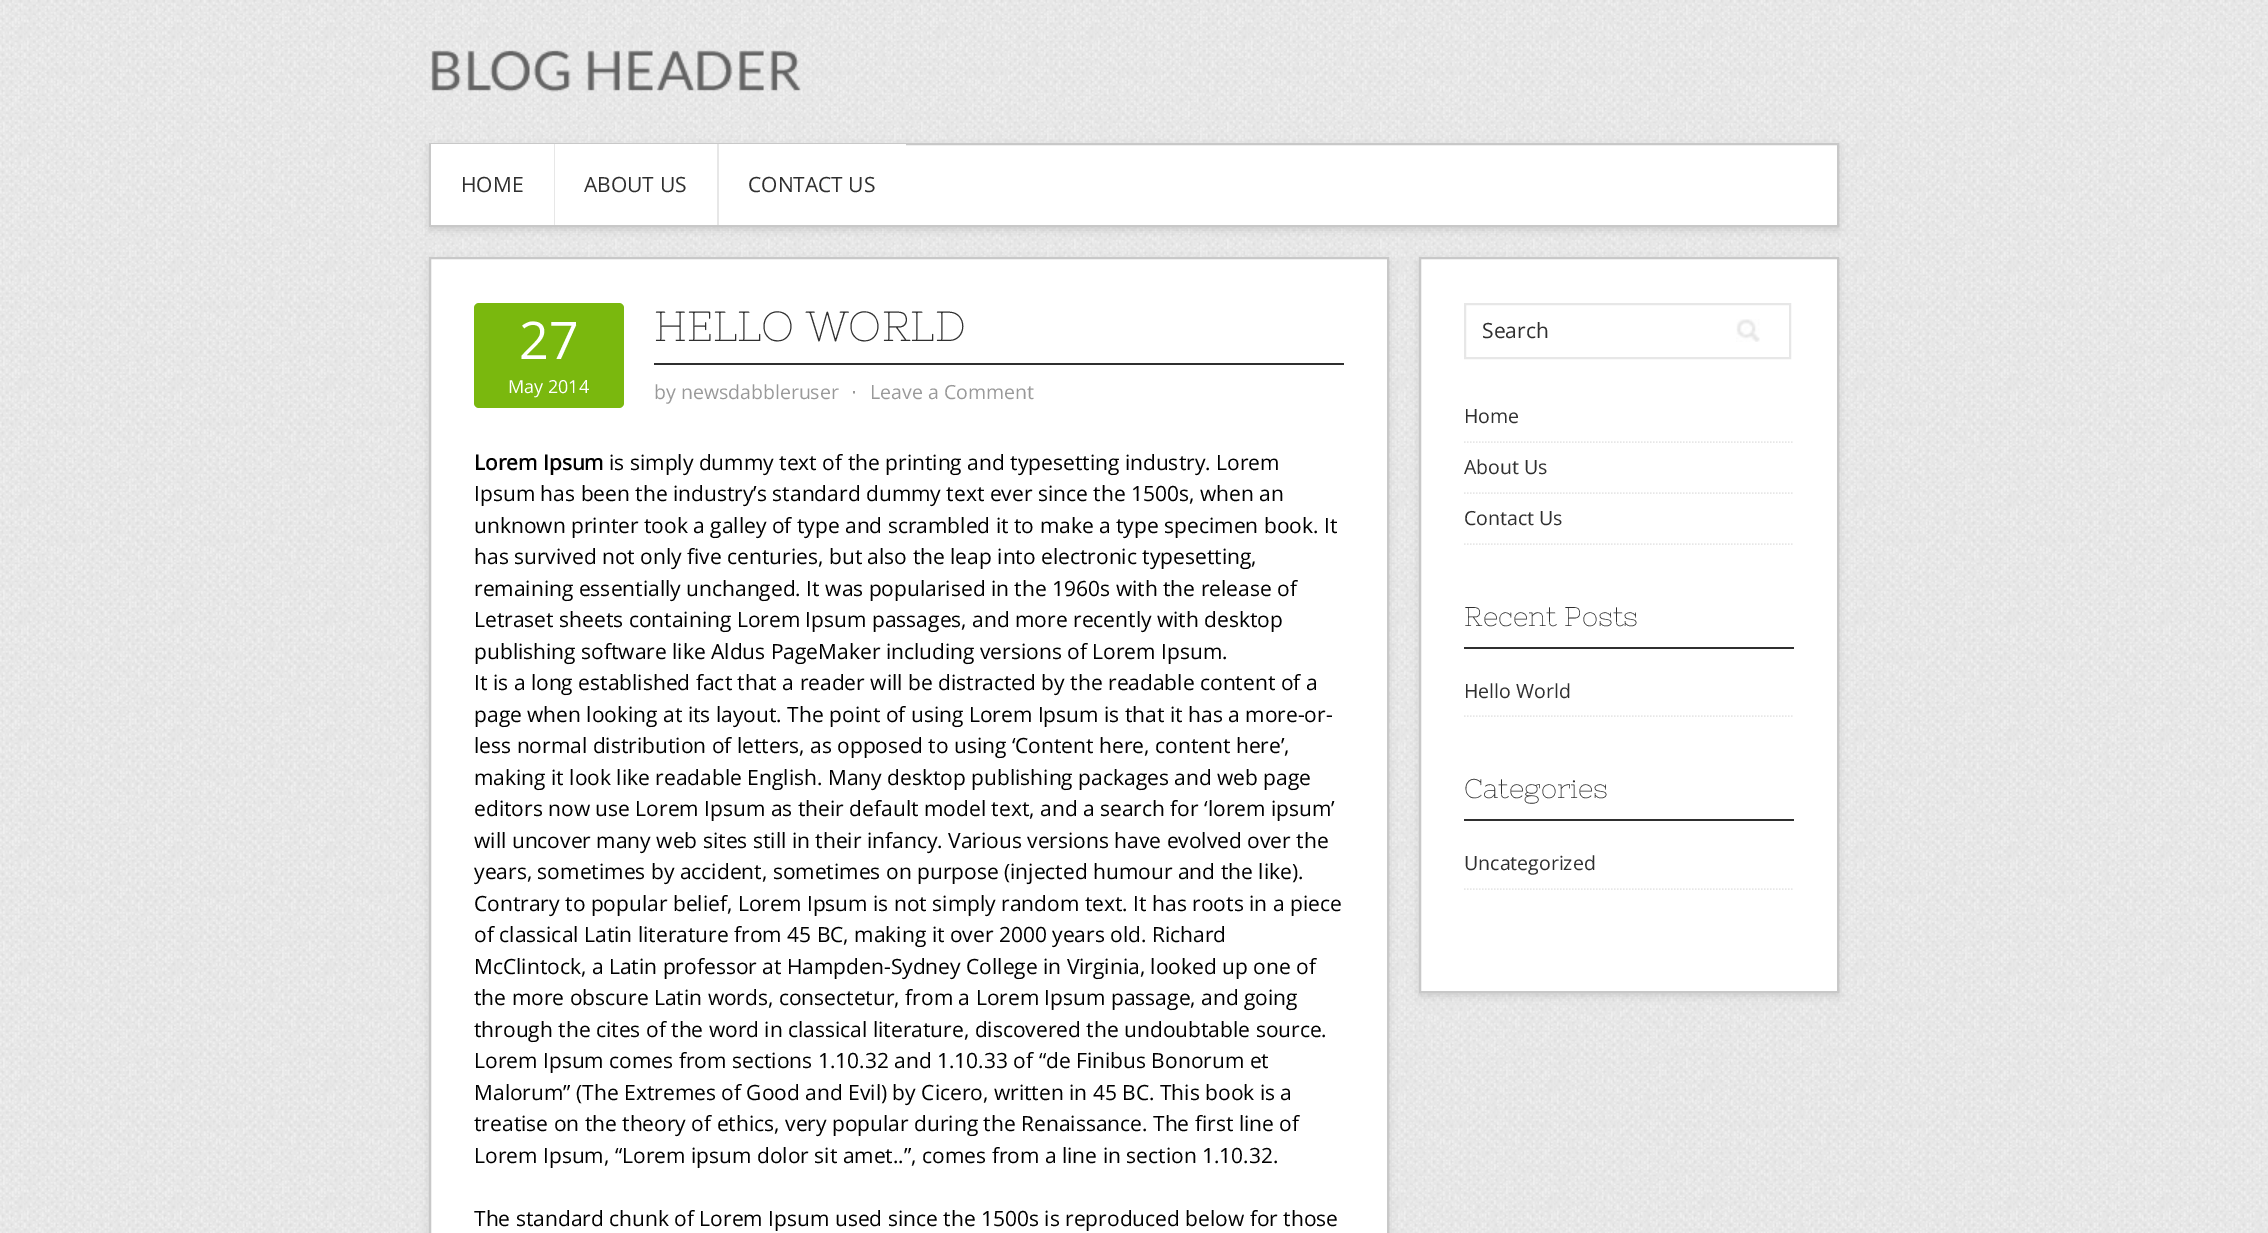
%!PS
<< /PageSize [2268 1233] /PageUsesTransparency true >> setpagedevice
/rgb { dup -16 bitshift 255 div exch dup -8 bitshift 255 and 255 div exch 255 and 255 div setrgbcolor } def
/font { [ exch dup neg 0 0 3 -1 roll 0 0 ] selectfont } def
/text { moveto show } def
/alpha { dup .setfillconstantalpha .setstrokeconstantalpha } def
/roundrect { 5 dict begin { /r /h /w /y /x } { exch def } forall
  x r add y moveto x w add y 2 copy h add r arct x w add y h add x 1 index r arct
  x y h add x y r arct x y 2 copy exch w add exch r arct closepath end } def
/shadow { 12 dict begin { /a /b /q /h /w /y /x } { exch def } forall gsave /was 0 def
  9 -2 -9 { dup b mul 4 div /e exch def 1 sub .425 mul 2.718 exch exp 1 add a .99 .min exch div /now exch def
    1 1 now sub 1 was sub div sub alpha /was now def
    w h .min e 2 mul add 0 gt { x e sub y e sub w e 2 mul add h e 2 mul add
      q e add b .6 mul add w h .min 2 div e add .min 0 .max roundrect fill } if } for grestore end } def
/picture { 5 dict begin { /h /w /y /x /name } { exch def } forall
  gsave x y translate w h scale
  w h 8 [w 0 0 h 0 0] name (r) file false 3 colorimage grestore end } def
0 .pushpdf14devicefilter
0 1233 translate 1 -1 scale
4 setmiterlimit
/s1 { /OpenSans-Regular 21 font 16#2F2F2F rgb } def
/s2 { /OpenSans-Regular 52 font 16#FFFFFF rgb } def
/s3 { /OpenSans-Regular 18 font 16#FFFFFF rgb } def
/s4 { /NixieOne-Regular 42 font 16#2F2F2F rgb } def
/s5 { /OpenSans-Regular 19.5 font 16#999999 rgb } def
/s6 { /DejaVuSans-Regular 19.5 font 16#999999 rgb } def
/s7 { /OpenSans-Bold 21 font 16#000000 rgb } def
/s8 { /OpenSans-Regular 21 font 16#000000 rgb } def
/s9 { /OpenSans-Regular 19.5 font 16#2F2F2F rgb } def
/s10 { /NixieOne-Regular 27 font 16#2F2F2F rgb } def
16#FFFFFF rgb
0 0 2268 1233 rectfill
(pic1.raw) 0 0 2268 1233 picture
(pic2.raw) 431 50 371 42 picture
16#323232 rgb
429 146 1410 84 0 4 0.15 shadow
16#FFFFFF rgb
906 145 931 80 rectfill
16#C8C8C8 rgb
2 setlinewidth
430 144 1408 82 rectstroke
16#FFFFFF rgb
431 144 123 81 rectfill
16#E7E7E7 rgb
554 144 1 81 rectfill
s1
(HOME) 461 192 text
16#FFFFFF rgb
555 144 162 81 rectfill
16#E7E7E7 rgb
717 144 2 81 rectfill
s1
(ABOUT US) 584 192 text
16#FFFFFF rgb
719 144 187 81 rectfill
s1
(CONTACT US) 748 192 text
16#323232 rgb
429 260 960 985 0 4 0.15 shadow
16#FFFFFF rgb
430 258 moveto 1388 258 lineto 1388 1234 lineto 430 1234 lineto closepath gsave fill grestore
16#C8C8C8 rgb
stroke
16#7AB80E rgb
474 303 150 105 5 roundrect fill
s2
(27) 519 359 text
s3
(May 2014) 508 393 text
16#2F2F2F rgb
654 363 690 2 rectfill
s4
(HELLO WORLD) 654 341 text
s5
(by newsdabbleruser) 654 399 text
s6
(⋅) 851 399 text
s5
(Leave a Comment) 870 399 text
s7
(Lorem Ipsum) 474 470 text
s8
(is simply dummy text of the printing and typesetting industry. Lorem) 609 470 text
(Ipsum has been the industry’s standard dummy text ever since the 1500s, when an) 474 501 text
(unknown printer took a galley of type and scrambled it to make a type specimen book. It) 474 533 text
(has survived not only five centuries, but also the leap into electronic typesetting,) 474 564 text
(remaining essentially unchanged. It was popularised in the 1960s with the release of) 474 596 text
(Letraset sheets containing Lorem Ipsum passages, and more recently with desktop) 474 627 text
(publishing software like Aldus PageMaker including versions of Lorem Ipsum.) 474 659 text
(It is a long established fact that a reader will be distracted by the readable content of a) 474 690 text
(page when looking at its layout. The point of using Lorem Ipsum is that it has a more-or-) 474 722 text
(less normal distribution of letters, as opposed to using ‘Content here, content here’,) 474 753 text
(making it look like readable English. Many desktop publishing packages and web page) 474 785 text
(editors now use Lorem Ipsum as their default model text, and a search for ‘lorem ipsum’) 474 816 text
(will uncover many web sites still in their infancy. Various versions have evolved over the) 474 848 text
(years, sometimes by accident, sometimes on purpose \(injected humour and the like\).) 474 879 text
(Contrary to popular belief, Lorem Ipsum is not simply random text. It has roots in a piece) 474 911 text
(of classical Latin literature from 45 BC, making it over 2000 years old. Richard) 474 942 text
(McClintock, a Latin professor at Hampden-Sydney College in Virginia, looked up one of) 474 974 text
(the more obscure Latin words, consectetur, from a Lorem Ipsum passage, and going) 474 1005 text
(through the cites of the word in classical literature, discovered the undoubtable source.) 474 1037 text
(Lorem Ipsum comes from sections 1.10.32 and 1.10.33 of “de Finibus Bonorum et) 474 1068 text
(Malorum” \(The Extremes of Good and Evil\) by Cicero, written in 45 BC. This book is a) 474 1100 text
(treatise on the theory of ethics, very popular during the Renaissance. The first line of) 474 1131 text
(Lorem Ipsum, “Lorem ipsum dolor sit amet..”, comes from a line in section 1.10.32.) 474 1163 text
(The standard chunk of Lorem Ipsum used since the 1500s is reproduced below for those) 474 1226 text
16#323232 rgb
1419 260 420 736 0 4 0.15 shadow
16#FFFFFF rgb
1420 258 moveto 1838 258 lineto 1838 992 lineto 1420 992 lineto closepath gsave fill grestore
16#C8C8C8 rgb
stroke
16#E7E7E7 rgb
1465 304 325 54 rectstroke
s1
(Search) 1482 338 text
(pic3.raw) 1736 319 24 23 picture
16#E7E7E7 rgb
1.5 setlinewidth
[1.5 1.5] 0 setdash
1464 442 moveto 1794 442 lineto stroke
s9
(Home) 1464 423 text
16#E7E7E7 rgb
1464 493 moveto 1794 493 lineto stroke
s9
(About Us) 1464 474 text
16#E7E7E7 rgb
1464 544 moveto 1794 544 lineto stroke
s9
(Contact Us) 1464 525 text
1464 647 330 2 rectfill
s10
(Recent Posts) 1464 626 text
16#E7E7E7 rgb
1464 716 moveto 1794 716 lineto stroke
s9
(Hello World) 1464 698 text
1464 819 330 2 rectfill
s10
(Categories) 1464 798 text
16#E7E7E7 rgb
1464 889 moveto 1794 889 lineto stroke
s9
(Uncategorized) 1464 870 text
.poppdf14devicefilter showpage
